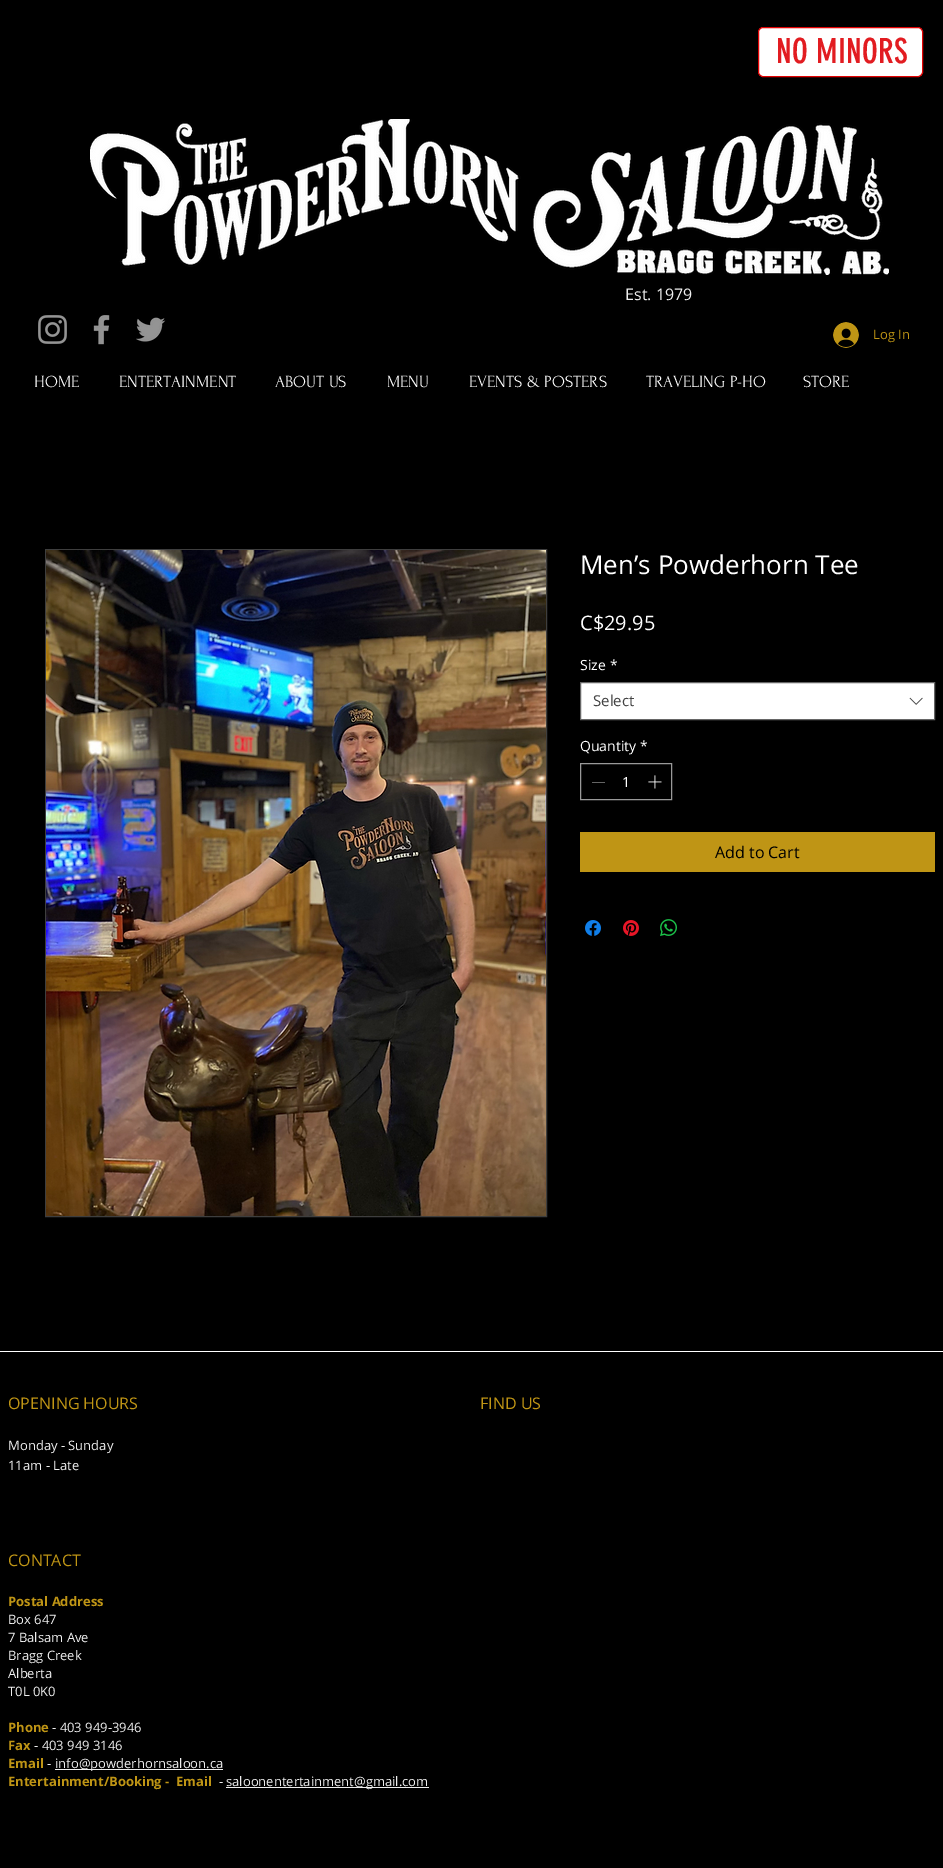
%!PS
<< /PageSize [943 1868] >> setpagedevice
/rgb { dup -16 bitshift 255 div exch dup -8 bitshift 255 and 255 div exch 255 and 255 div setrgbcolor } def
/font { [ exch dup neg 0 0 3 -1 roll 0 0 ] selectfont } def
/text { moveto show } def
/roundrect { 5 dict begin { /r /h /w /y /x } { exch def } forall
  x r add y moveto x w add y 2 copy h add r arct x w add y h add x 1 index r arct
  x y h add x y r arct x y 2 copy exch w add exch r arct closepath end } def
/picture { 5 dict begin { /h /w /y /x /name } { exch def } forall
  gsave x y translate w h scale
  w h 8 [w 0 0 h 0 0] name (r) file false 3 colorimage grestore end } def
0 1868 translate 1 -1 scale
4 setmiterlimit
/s1 { /OpenSans-Regular 16 font 16#EFEFEF rgb } def
/s2 { /OpenSans-Regular 13 font 16#BF9515 rgb } def
/s3 { /Forum-Regular 17 font 16#FFFFFF rgb } def
/s4 { /OpenSans-Regular 26 font 16#FFFFFF rgb } def
/s5 { /OpenSans-Regular 20 font 16#FFFFFF rgb } def
/s6 { /OpenSans-Regular 14 font 16#FFFFFF rgb } def
/s7 { /OpenSans-Regular 15 font 16#444444 rgb } def
/s8 { /OpenSans-Regular 16 font 16#000000 rgb } def
/s9 { /OpenSans-Regular 16 font 16#BF9515 rgb } def
/s10 { /OpenSans-Regular 13 font 16#EFEFEF rgb } def
/s11 { /OpenSans-Bold 13 font 16#BF9515 rgb } def
16#000000 rgb
0 0 943 1868 rectfill
16#FFFFFF rgb
758.5 27.5 164 49 4.5 roundrect gsave fill grestore
16#E20202 rgb
stroke
/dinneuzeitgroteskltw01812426-Regular 34 font
16#E21C21 rgb
776 63 moveto 0.25 0 (NO MINORS) ashow
(pic1.raw) 90 119 799 156 picture
s1
(Est. 1979) 625 300 text
(pic2.raw) 38 315 29 29 picture
(pic3.raw) 93 315 17 30 picture
(pic4.raw) 136 317 30 25 picture
(pic5.raw) 833 322 26 26 picture
s2
(Log In) 873 339 text
s3
(HOME) 34 387 text
(ENTERTAINMENT) 119 387 text
(ABOUT US) 275 387 text
(MENU) 387 387 text
(EVENTS & POSTERS) 469 387 text
(TRAVELING P-HO) 646 387 text
(STORE) 803 387 text
16#3E3E3E rgb
45.5 549.5 501 667 rectstroke
(pic6.raw) 46 550 500 666 picture
s4
(Men’s Powderhorn Tee) 580 574 text
s5
(C$29.95) 580 630 text
s6
(Size) 580 670 text
(*) 610 670 text
580.5 682.5 moveto 934.5 682.5 lineto 934.5 719.5 lineto 580.5 719.5 lineto closepath gsave fill grestore
16#666666 rgb
stroke
s7
(Select) 593 706 text
(pic7.raw) 909 697 14 8 picture
s6
(Quantity) 580 751 text
(*) 640 751 text
16#999999 rgb
580.5 763.5 91 36 rectstroke
16#646464 rgb
592 782 13 1 rectfill
s6
(1) 622 787 text
(pic8.raw) 648 775 14 14 picture
16#BF9515 rgb
580 832 355 40 rectfill
s8
(Add to Cart) 715 858 text
(pic9.raw) 585 920 16 16 picture
(pic10.raw) 623 920 16 16 picture
(pic11.raw) 660 919 17 17 picture
16#FFFFFF rgb
0 1351 943 1 rectfill
s9
(OPENING HOURS) 8 1409 text
s10
(Monday - Sunday) 8 1450 text
(11am - Late) 8 1470 text
s9
(FIND US) 480 1409 text
(CONTACT) 8 1566 text
s11
(Postal Address) 8 1606 text
s10
(Box 647) 8 1624 text
(7 Balsam Ave) 8 1642 text
(Bragg Creek) 8 1660 text
(Alberta) 8 1678 text
(T0L 0K0) 8 1696 text
s11
(Phone) 8 1732 text
s10
(- 403 949-3946) 52 1732 text
s11
(Fax) 8 1750 text
s10
(- 403 949 3146) 34 1750 text
s11
(Email) 8 1768 text
s10
(-) 47 1768 text
55 1769 168 1 rectfill
(info@powderhornsaloon.ca) 55 1768 text
s11
(Entertainment/Booking -  Email) 8 1786 text
s10
(-) 219 1786 text
226 1787 203 1 rectfill
(saloonentertainment@gmail.com) 226 1786 text
showpage
